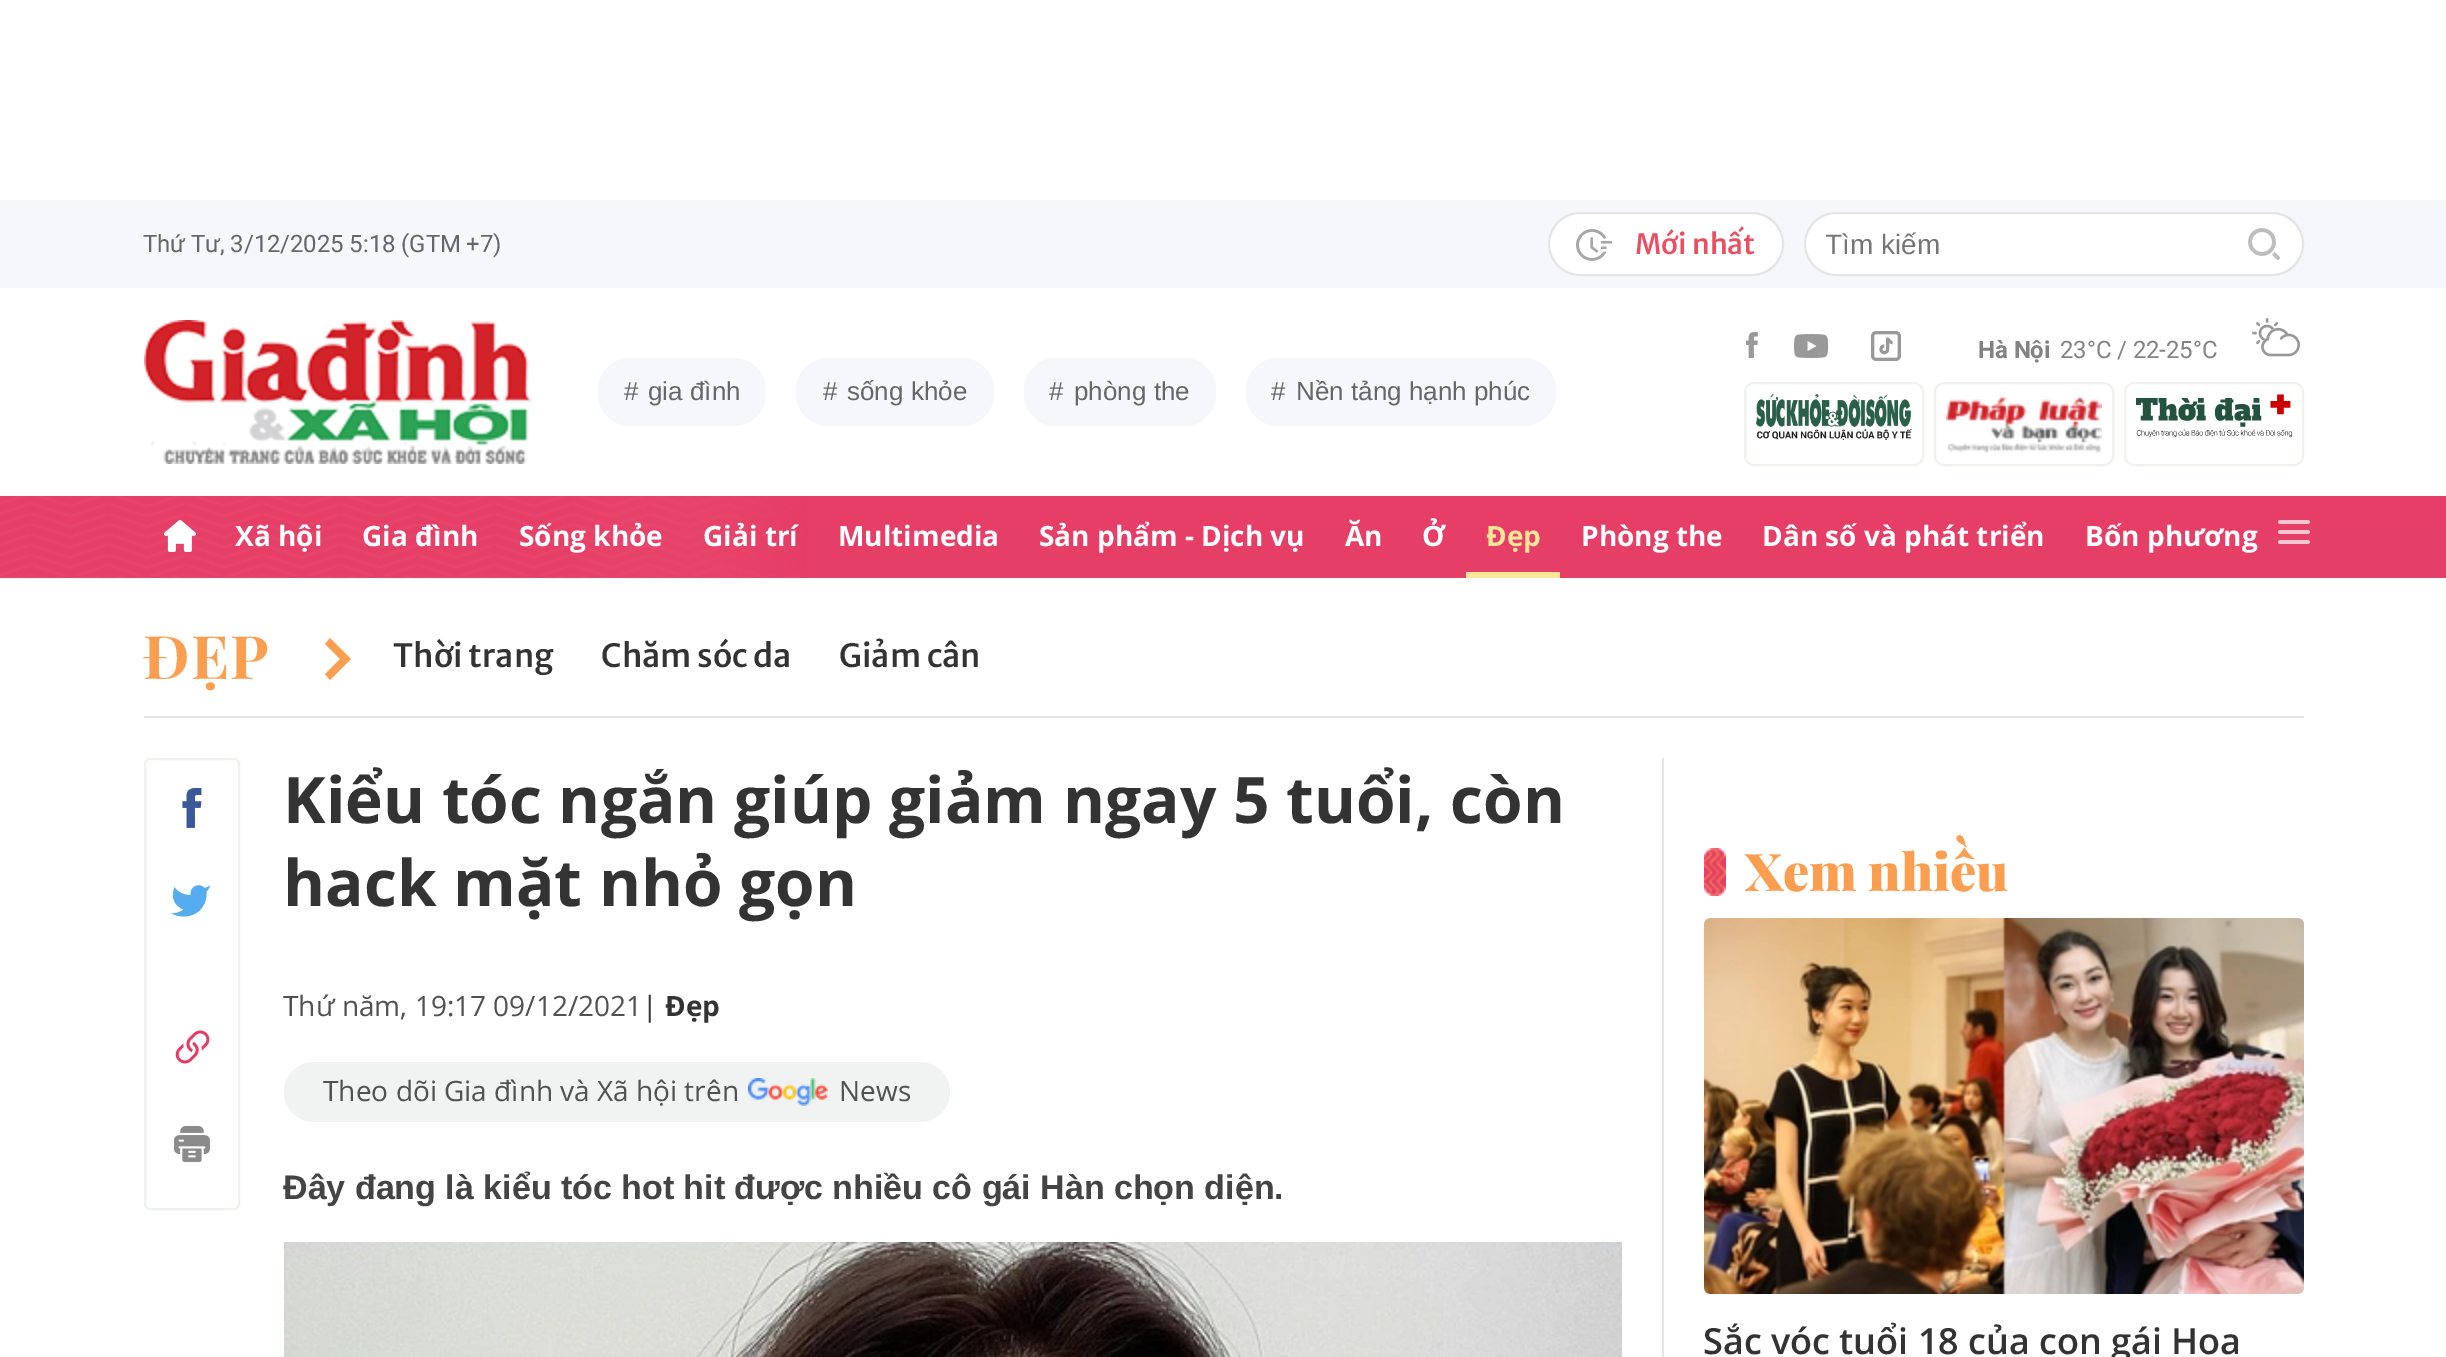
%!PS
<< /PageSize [2446 1357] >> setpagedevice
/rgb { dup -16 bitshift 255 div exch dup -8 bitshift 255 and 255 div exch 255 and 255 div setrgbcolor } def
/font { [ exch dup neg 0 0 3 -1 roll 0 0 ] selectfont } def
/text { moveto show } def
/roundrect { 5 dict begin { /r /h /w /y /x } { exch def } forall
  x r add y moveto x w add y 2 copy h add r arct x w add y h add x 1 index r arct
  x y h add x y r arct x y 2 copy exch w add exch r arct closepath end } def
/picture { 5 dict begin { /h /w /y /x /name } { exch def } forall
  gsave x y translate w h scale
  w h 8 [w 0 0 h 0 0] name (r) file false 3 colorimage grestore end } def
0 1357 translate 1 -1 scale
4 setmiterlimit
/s1 { /MerriweatherSans-Medium 28 font 16#E94E61 rgb } def
/s2 { /LiberationSans-Regular 28 font 16#757575 rgb } def
/s3 { /LiberationSans-Regular 26 font 16#666666 rgb } def
/s4 { /OpenSans-Bold 28 font 16#FFFFFF rgb } def
/s5 { /OpenSans-Bold 28 font 16#FFE698 rgb } def
/s6 { /MerriweatherSans-Medium 32 font 16#333333 rgb } def
/s7 { /OpenSans-Bold 64 font 16#333333 rgb } def
/s8 { /OpenSans-Regular 28 font 16#515151 rgb } def
/s9 { /OpenSans-Regular 28 font 16#333333 rgb } def
/s10 { /OpenSans-Bold 28 font 16#333333 rgb } def
/s11 { /LiberationSans-Bold 34 font 16#444444 rgb } def
/s12 { /PlayfairDisplay-Black 52 font 16#FC9E4F rgb } def
/s13 { /OpenSans-SemiBold 36 font 16#333333 rgb } def
16#FFFFFF rgb
0 0 2446 1357 rectfill
16#F6F7FB rgb
0 200 2446 88 rectfill
/Roboto-Regular 24 font
16#666666 rgb
143 252 moveto -0.1 0 (Thứ Tư, 3/12/2025 5:18 \(GTM +7\)) ashow
16#FFFFFF rgb
1549 213 234 62 31 roundrect gsave fill grestore
16#E5E5E5 rgb
2 setlinewidth
stroke
(pic1.raw) 1576 229 37 32 picture
s1
(Mới nhất) 1635 254 text
16#FFFFFF rgb
1805 213 498 62 31 roundrect gsave fill grestore
16#E5E5E5 rgb
stroke
gsave
1826 228 456 32 rectclip
s2
(Tìm kiếm) 1825 254 text
grestore
(pic2.raw) 2248 228 32 32 picture
(pic3.raw) 144 320 388 144 picture
(pic4.raw) 1746 332 12 26 picture
(pic5.raw) 1794 334 35 24 picture
(pic6.raw) 1871 331 30 30 picture
/Roboto-Bold 24 font
16#828282 rgb
1978 358 moveto -0.1 0 (Hà Nội) ashow
/Roboto-Regular 24 font
2060 358 moveto -0.1 0 (23°C / 22-25°C) ashow
(pic7.raw) 2252 318 48 39 picture
16#EEF4ED rgb
1745 383 178 82 9 roundrect stroke
(pic8.raw) 1756 394 156 46 picture
1935 383 178 82 9 roundrect stroke
(pic9.raw) 1946 397 156 56 picture
2125 383 178 82 9 roundrect stroke
(pic10.raw) 2136 394 156 44 picture
16#F6F7FB rgb
598 358 168 68 32 roundrect fill
s3
(#) 624 400 text
(gia đình) 648 400 text
16#F6F7FB rgb
796 358 198 68 32 roundrect fill
s3
(#) 823 400 text
(sống khỏe) 847 400 text
16#F6F7FB rgb
1024 358 192 68 32 roundrect fill
s3
(#) 1049 400 text
(phòng the) 1074 400 text
16#F6F7FB rgb
1246 358 310 68 32 roundrect fill
s3
(#) 1271 400 text
(Nền tảng hạnh phúc) 1296 400 text
(pic11.raw) 0 496 2446 82 picture
(pic12.raw) 164 520 32 32 picture
s4
(Xã hội) 235 546 text
(Gia đình) 362 546 text
(Sống khỏe) 519 546 text
(Giải trí) 703 546 text
(Multimedia) 838 546 text
(Sản phẩm - Dịch vụ) 1039 546 text
(Ăn) 1345 546 text
(Ở) 1422 546 text
16#FFE698 rgb
1466 572 94 6 rectfill
(Đẹp) 1486 546 text
s4
(Phòng the) 1581 546 text
(Dân số và phát triển) 1762 546 text
(Bốn phương) 2085 546 text
(pic13.raw) 2278 520 32 24 picture
16#E5E5E5 rgb
144 716 2160 2 rectfill
/PlayfairDisplay-Bold 60 font
16#FC9E4F rgb
143 679 moveto 1 0 (ĐẸP) ashow
330 680 moveto 325 674 lineto 340 659 lineto 325 644 lineto 330 638 lineto 351 659 lineto closepath fill
s6
(Thời trang) 393 667 text
(Chăm sóc da) 601 667 text
(Giảm cân) 839 667 text
16#E6E6E6 rgb
1662 758 2 599 rectfill
16#EEF4ED rgb
145 759 94 450 5 roundrect stroke
(pic14.raw) 182 788 20 40 picture
(pic15.raw) 171 885 40 32 picture
(pic16.raw) 175 1030 35 34 picture
(pic17.raw) 174 1126 36 36 picture
s7
(Kiểu tóc ngắn giúp giảm ngay 5 tuổi, còn) 283 823 text
(hack mặt nhỏ gọn) 283 906 text
s8
(Thứ năm, 19:17 09/12/2021) 283 1016 text
s9
(|) 642 1016 text
s10
(Đẹp) 665 1016 text
16#F1F2F2 rgb
284 1062 666 60 30 roundrect fill
s8
(Theo dõi Gia đình và Xã hội trên) 323 1101 text
(pic18.raw) 748 1078 80 28 picture
(News) 839 1101 text
s11
(Đây đang là kiểu tóc hot hit được nhiều cô gái Hàn chọn diện.) 283 1199 text
(pic19.raw) 284 1242 1338 115 picture
(pic20.raw) 1704 848 22 48 picture
s12
(Xem nhiều) 1745 891 text
(pic21.raw) 1704 918 600 376 picture
s13
(Sắc vóc tuổi 18 của con gái Hoa) 1703 1354 text
showpage
